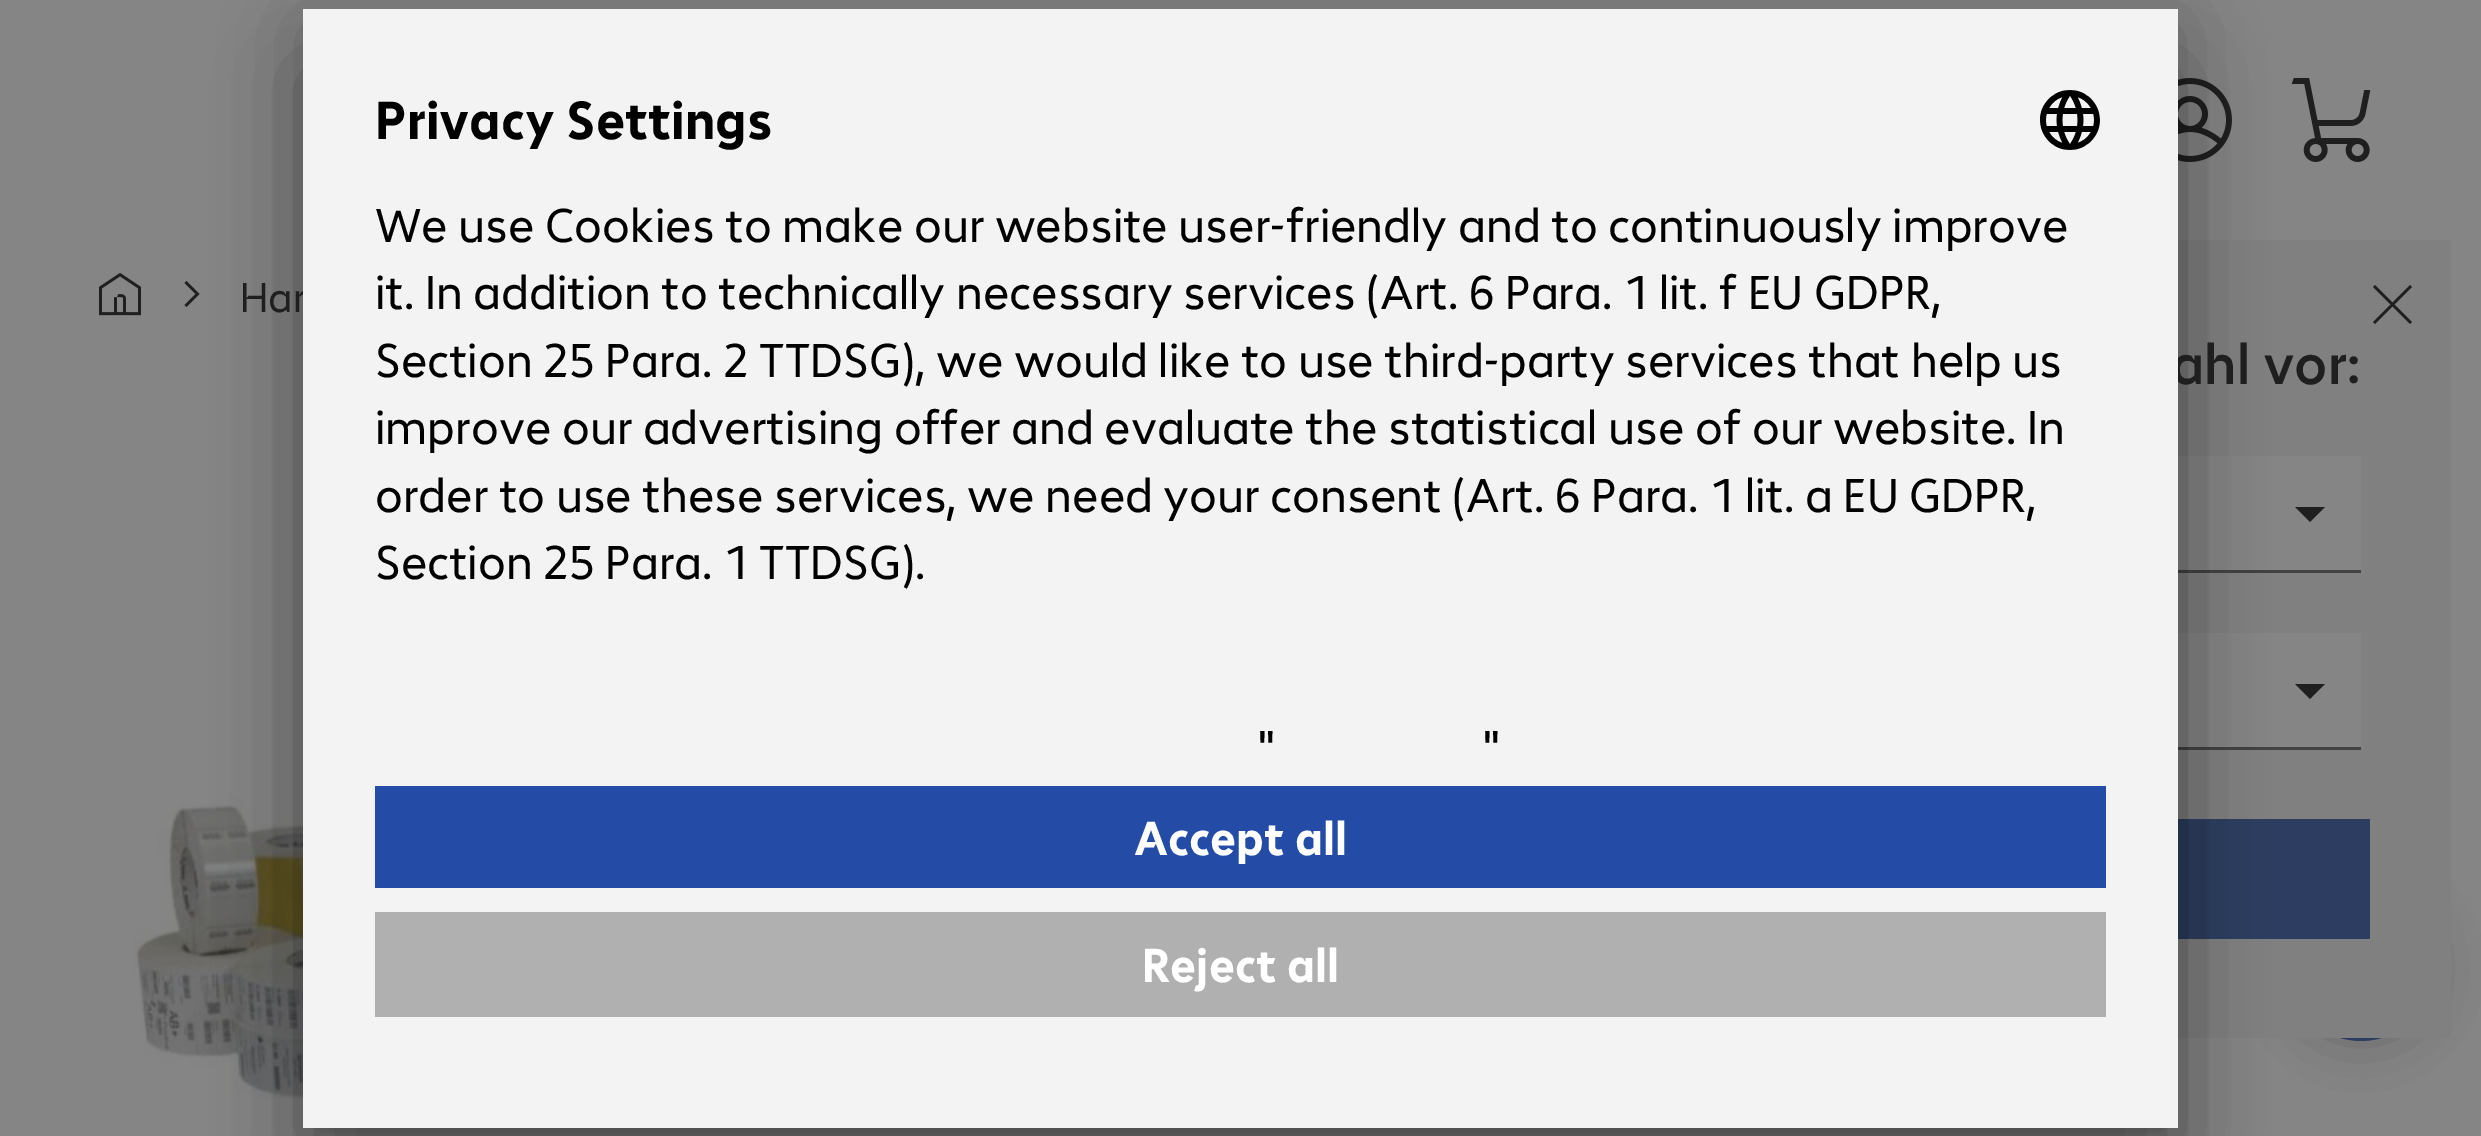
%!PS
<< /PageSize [2481 1136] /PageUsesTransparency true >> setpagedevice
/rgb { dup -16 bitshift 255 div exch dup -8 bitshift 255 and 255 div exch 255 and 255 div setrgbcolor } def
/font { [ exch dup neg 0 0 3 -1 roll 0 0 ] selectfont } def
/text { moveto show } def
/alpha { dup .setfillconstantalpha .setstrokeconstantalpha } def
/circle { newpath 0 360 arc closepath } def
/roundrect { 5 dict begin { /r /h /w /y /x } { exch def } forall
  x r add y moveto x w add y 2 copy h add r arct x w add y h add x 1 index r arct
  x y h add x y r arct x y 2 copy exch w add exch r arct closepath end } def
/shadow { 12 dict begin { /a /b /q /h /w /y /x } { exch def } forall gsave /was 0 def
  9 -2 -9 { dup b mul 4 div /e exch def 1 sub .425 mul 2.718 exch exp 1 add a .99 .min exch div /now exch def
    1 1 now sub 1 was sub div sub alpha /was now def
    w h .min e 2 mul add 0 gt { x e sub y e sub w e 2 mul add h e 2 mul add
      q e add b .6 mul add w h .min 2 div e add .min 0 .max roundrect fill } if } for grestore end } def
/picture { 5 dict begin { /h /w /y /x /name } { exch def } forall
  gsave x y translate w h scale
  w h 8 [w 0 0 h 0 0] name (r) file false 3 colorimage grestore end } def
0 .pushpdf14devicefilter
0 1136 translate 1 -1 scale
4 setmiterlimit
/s1 { /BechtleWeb-Regular 42 font 16#1F1F1F rgb } def
/s2 { /BechtleWeb-Medium 57.5 font 16#1F1F1F rgb } def
/s3 { /BechtleWeb-Bold 54 font 16#000000 rgb } def
/s4 { /BechtleWeb-Regular 48 font 16#000000 rgb } def
/s5 { /BechtleWeb-Bold 48 font 16#FFFFFF rgb } def
16#858585 rgb
0 0 2481 1136 rectfill
16#1F1F1F rgb
186.5 307 moveto 184.5 305 lineto 195.5 294 lineto 184.5 283 lineto 186.5 281 lineto 199.5 294 lineto closepath fill
(pic3.raw) 134 771 169 328 picture
16#1F2523 rgb
2289 897 144 144 72 30 0.16 shadow
2289 897 144 144 72 30 0.16 shadow
16#2D3D61 rgb
2361 969 72 circle fill
(pic4.raw) 2178 78 54 84 picture
(pic5.raw) 2291 78 80 84 picture
16#808080 rgb
2178 240 273 798 rectfill
16#858585 rgb
2178 456 183 114 rectfill
16#434343 rgb
2178 570 183 3 rectfill
16#1F1F1F rgb
2295 507 moveto 2325 507 lineto 2310 522 lineto closepath fill
16#858585 rgb
2178 633 183 114 rectfill
16#434343 rgb
2178 747 183 3 rectfill
16#1F1F1F rgb
2295 684 moveto 2325 684 lineto 2310 699 lineto closepath fill
16#2D3D61 rgb
2178 819 192 120 rectfill
16#000000 rgb
303 69 1875 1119 0 42 0.3 shadow
303 24 1875 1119 0 39 0.22 shadow
s1
(Har) 240 312 text
s2
(ahl vor:) 2171 384 text
16#F3F3F3 rgb
303 9 1875 1119 rectfill
s3
(Privacy Settings) 375 139 text
(pic1.raw) 2040 90 60 60 picture
s4
(We use Cookies to make our website user-friendly and to continuously improve) 375 242 text
(it. In addition to technically necessary services \(Art. 6 Para. 1 lit. f EU GDPR,) 375 309 text
(Section 25 Para. 2 TTDSG\), we would like to use third-party services that help us) 375 377 text
(improve our advertising offer and evaluate the statistical use of our website. In) 375 444 text
(order to use these services, we need your consent \(Art. 6 Para. 1 lit. a EU GDPR,) 375 512 text
(Section 25 Para. 1 TTDSG\).) 375 579 text
(") 1258 764 text
(") 1483 764 text
16#244CA7 rgb
375 786 1731 102 rectfill
s5
(Accept all) 1134 855 text
16#B0B0B0 rgb
375 912 1731 105 rectfill
s5
(Reject all) 1142 982 text
(pic2.raw) 99 273 42 43 picture
16#1F1F1F rgb
2412 287 moveto 2410 285 lineto 2392.5 302.5 lineto 2375 285 lineto 2373 287 lineto 2390.5 304.5 lineto 2373 322 lineto 2375 324 lineto 2392.5 306.5 lineto 2410 324 lineto 2412 322 lineto 2394.5 304.5 lineto closepath fill
.poppdf14devicefilter showpage
